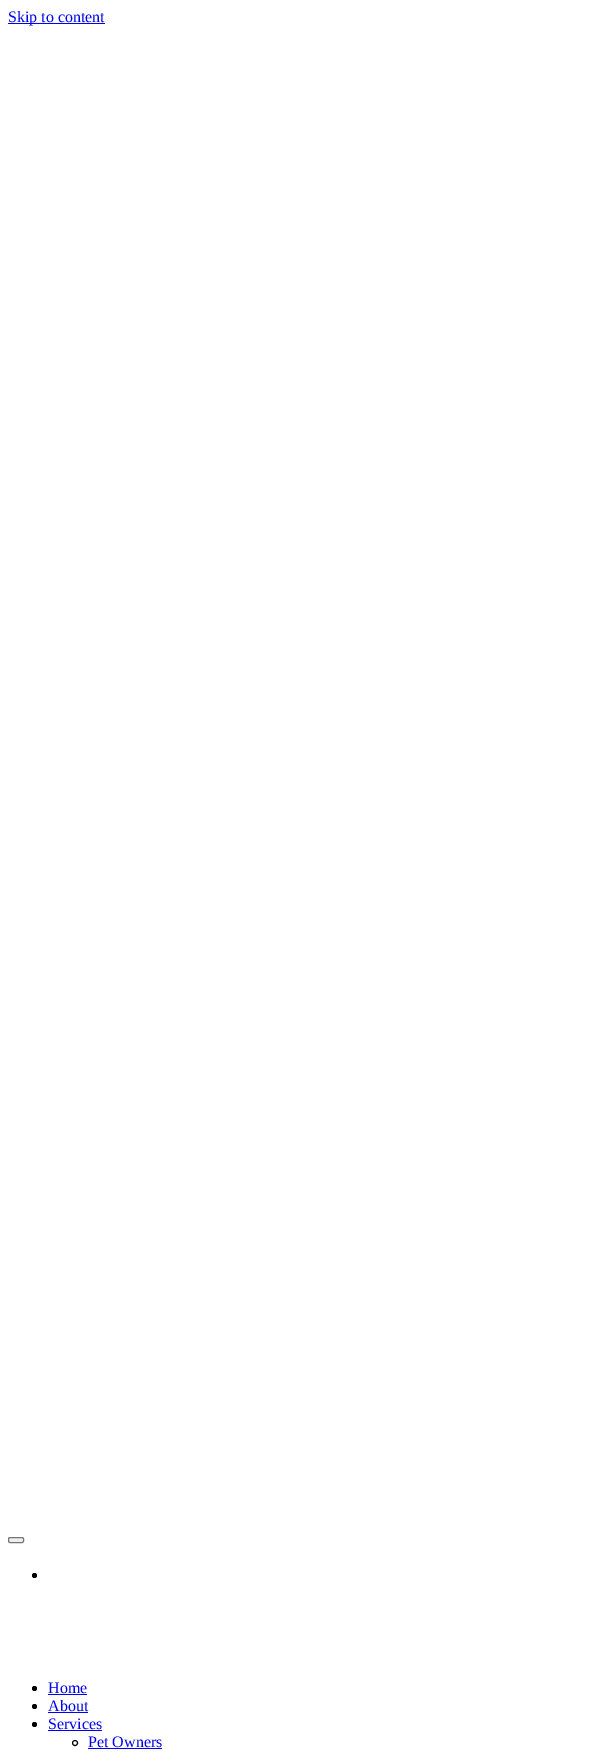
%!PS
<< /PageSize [613 1757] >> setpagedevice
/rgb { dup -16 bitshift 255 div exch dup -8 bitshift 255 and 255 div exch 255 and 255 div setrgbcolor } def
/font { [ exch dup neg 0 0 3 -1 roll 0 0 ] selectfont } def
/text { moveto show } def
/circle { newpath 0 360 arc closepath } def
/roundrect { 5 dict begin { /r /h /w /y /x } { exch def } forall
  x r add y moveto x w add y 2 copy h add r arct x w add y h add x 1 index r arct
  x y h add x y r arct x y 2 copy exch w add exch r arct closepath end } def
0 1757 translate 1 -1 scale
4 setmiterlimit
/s1 { /LiberationSerif-Regular 16 font 16#0000EE rgb } def
16#FFFFFF rgb
0 0 613 1757 rectfill
16#0000EE rgb
8 23 97 1 rectfill
s1
(Skip to content) 8 22 text
16#EFEFEF rgb
8.5 1537.5 15 5 1.5 roundrect gsave fill grestore
16#767676 rgb
stroke
16#000000 rgb
34.5 1575.5 2.5 circle fill
34.5 1688.5 2.5 circle fill
s1
(Home) 48 1693 text
48 1694 39 1 rectfill
16#000000 rgb
34.5 1706.5 2.5 circle fill
s1
(About) 48 1711 text
48 1712 40 1 rectfill
16#000000 rgb
34.5 1724.5 2.5 circle fill
s1
(Services) 48 1729 text
48 1730 54 1 rectfill
16#000000 rgb
75 1743 2.5 circle stroke
s1
(Pet Owners) 88 1747 text
88 1748 74 1 rectfill
showpage
